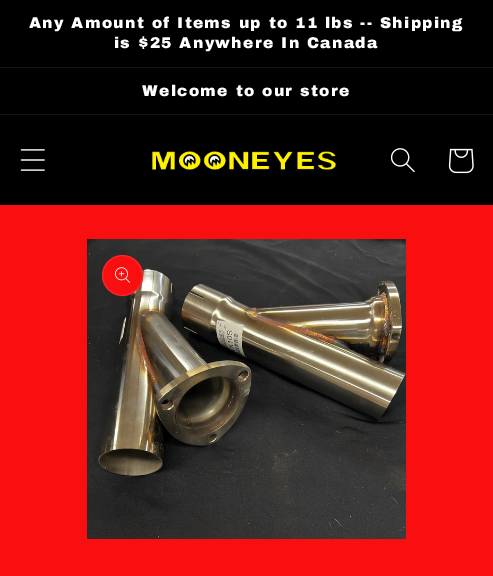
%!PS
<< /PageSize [493 576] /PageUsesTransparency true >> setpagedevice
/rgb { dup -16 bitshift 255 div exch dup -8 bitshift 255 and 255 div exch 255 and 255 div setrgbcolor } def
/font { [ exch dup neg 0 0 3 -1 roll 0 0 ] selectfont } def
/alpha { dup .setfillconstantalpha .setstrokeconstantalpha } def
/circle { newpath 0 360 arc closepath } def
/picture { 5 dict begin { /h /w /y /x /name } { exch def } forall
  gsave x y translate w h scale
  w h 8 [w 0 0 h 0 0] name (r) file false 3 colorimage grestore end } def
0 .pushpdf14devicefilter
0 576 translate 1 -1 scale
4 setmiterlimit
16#F90F0F rgb
0 0 493 576 rectfill
16#000000 rgb
0 0 493 67 rectfill
16#141414 rgb
0 67 493 1 rectfill
/ArchivoBlack-Regular 15.6 font
16#FFFFFF rgb
29 28 moveto 1.3 0 (Any Amount of Items up to 11 lbs -- Shipping) ashow
114 48 moveto 1.3 0 (is $25 Anywhere In Canada) ashow
16#000000 rgb
0 68 493 46 rectfill
16#141414 rgb
0 114 493 1 rectfill
16#FFFFFF rgb
142 96 moveto 1.3 0 (Welcome to our store) ashow
16#000000 rgb
0 115 493 90 rectfill
(pic1.raw) 20 149 25 22 picture
(pic2.raw) 152 151 184 19 picture
(pic3.raw) 390 148 25 25 picture
(pic4.raw) 448 148 26 26 picture
(pic5.raw) 87 239 319 300 picture
16#F90F0F rgb
122.5 275.5 20.5 circle fill
0.1 alpha
16#FFFFFF rgb
122.5 275.5 20 circle stroke
1 alpha
(pic6.raw) 115 267 16 16 picture
.poppdf14devicefilter showpage
